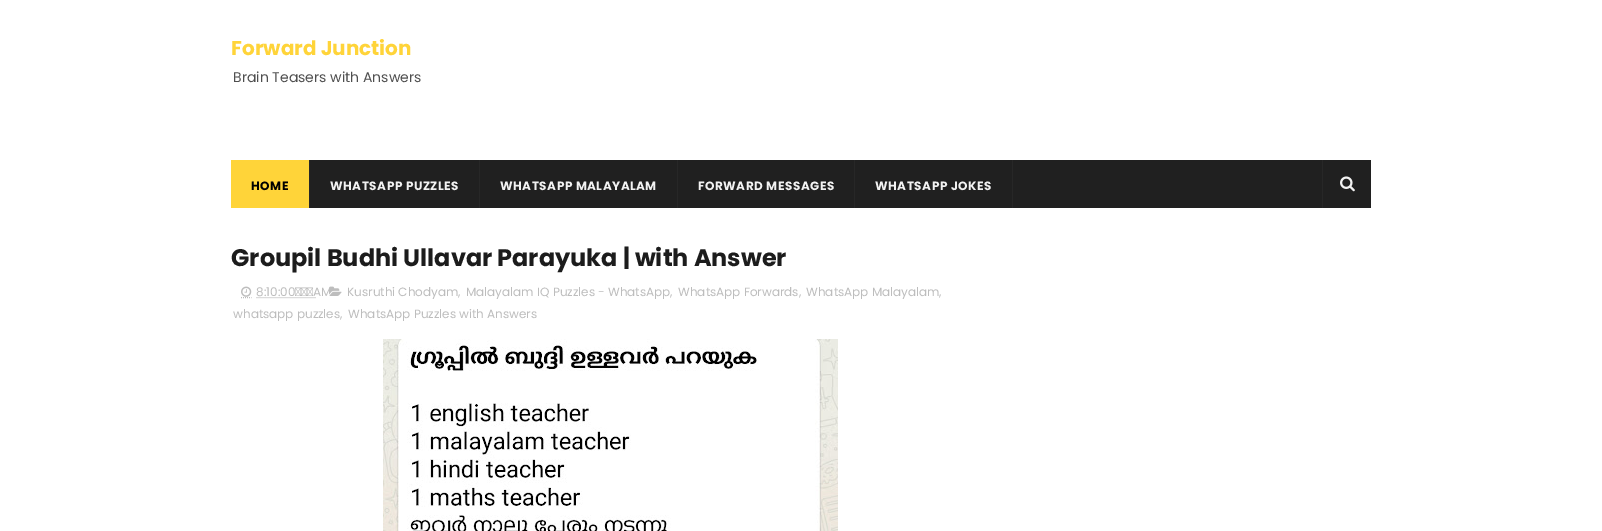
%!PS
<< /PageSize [1602 531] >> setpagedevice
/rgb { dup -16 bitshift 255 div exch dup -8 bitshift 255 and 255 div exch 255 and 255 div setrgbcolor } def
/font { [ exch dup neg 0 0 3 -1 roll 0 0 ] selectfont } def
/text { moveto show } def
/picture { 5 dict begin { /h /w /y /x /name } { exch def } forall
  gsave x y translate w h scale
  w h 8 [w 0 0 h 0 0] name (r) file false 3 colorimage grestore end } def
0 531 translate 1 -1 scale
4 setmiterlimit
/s1 { /Poppins-Bold 20 font 16#FFD439 rgb } def
/s2 { /Poppins-Regular 14 font 16#4F4F4F rgb } def
/s3 { /Poppins-Bold 24 font 16#1C1C1C rgb } def
/s4 { /Poppins-Regular 12 font 16#BDBDBD rgb } def
16#FFFFFF rgb
0 0 1602 531 rectfill
s1
(Forward Junction) 231 55 text
s2
(Brain Teasers with Answers) 233 82 text
16#202020 rgb
310 160 1061 48 rectfill
16#FFD439 rgb
231 160 78 48 rectfill
16#272727 rgb
309 160 1 48 rectfill
/Poppins-Bold 12 font
16#000000 rgb
251 190 moveto 0.5 0 (HOME) ashow
16#272727 rgb
479 160 1 48 rectfill
16#F2F2F2 rgb
330 190 moveto 0.5 0 (WHATSAPP PUZZLES) ashow
16#272727 rgb
677 160 1 48 rectfill
16#F2F2F2 rgb
500 190 moveto 0.5 0 (WHATSAPP MALAYALAM) ashow
16#272727 rgb
854 160 1 48 rectfill
16#F2F2F2 rgb
698 190 moveto 0.5 0 (FORWARD MESSAGES) ashow
16#272727 rgb
1012 160 1 48 rectfill
16#F2F2F2 rgb
875 190 moveto 0.5 0 (WHATSAPP JOKES) ashow
16#272727 rgb
1322 160 1 48 rectfill
(pic1.raw) 1340 176 15 16 picture
s3
(Groupil Budhi Ullavar Parayuka | with Answer) 231 266 text
(pic2.raw) 241 286 11 11 picture
s4
(8:10:00 AM) 256 296 text
[1 1] 0 setdash
241 297.5 moveto 251.5 297.5 lineto stroke
256.5 297.5 moveto 315.5 297.5 lineto stroke
(pic3.raw) 329 286 13 10 picture
(Kusruthi Chodyam,) 347 296 text
(Malayalam IQ Puzzles - WhatsApp,) 466 296 text
(WhatsApp Forwards,) 678 296 text
(WhatsApp Malayalam,) 806 296 text
(whatsapp puzzles,) 233 318 text
(WhatsApp Puzzles with Answers) 348 318 text
(pic4.raw) 383 339 455 192 picture
showpage
